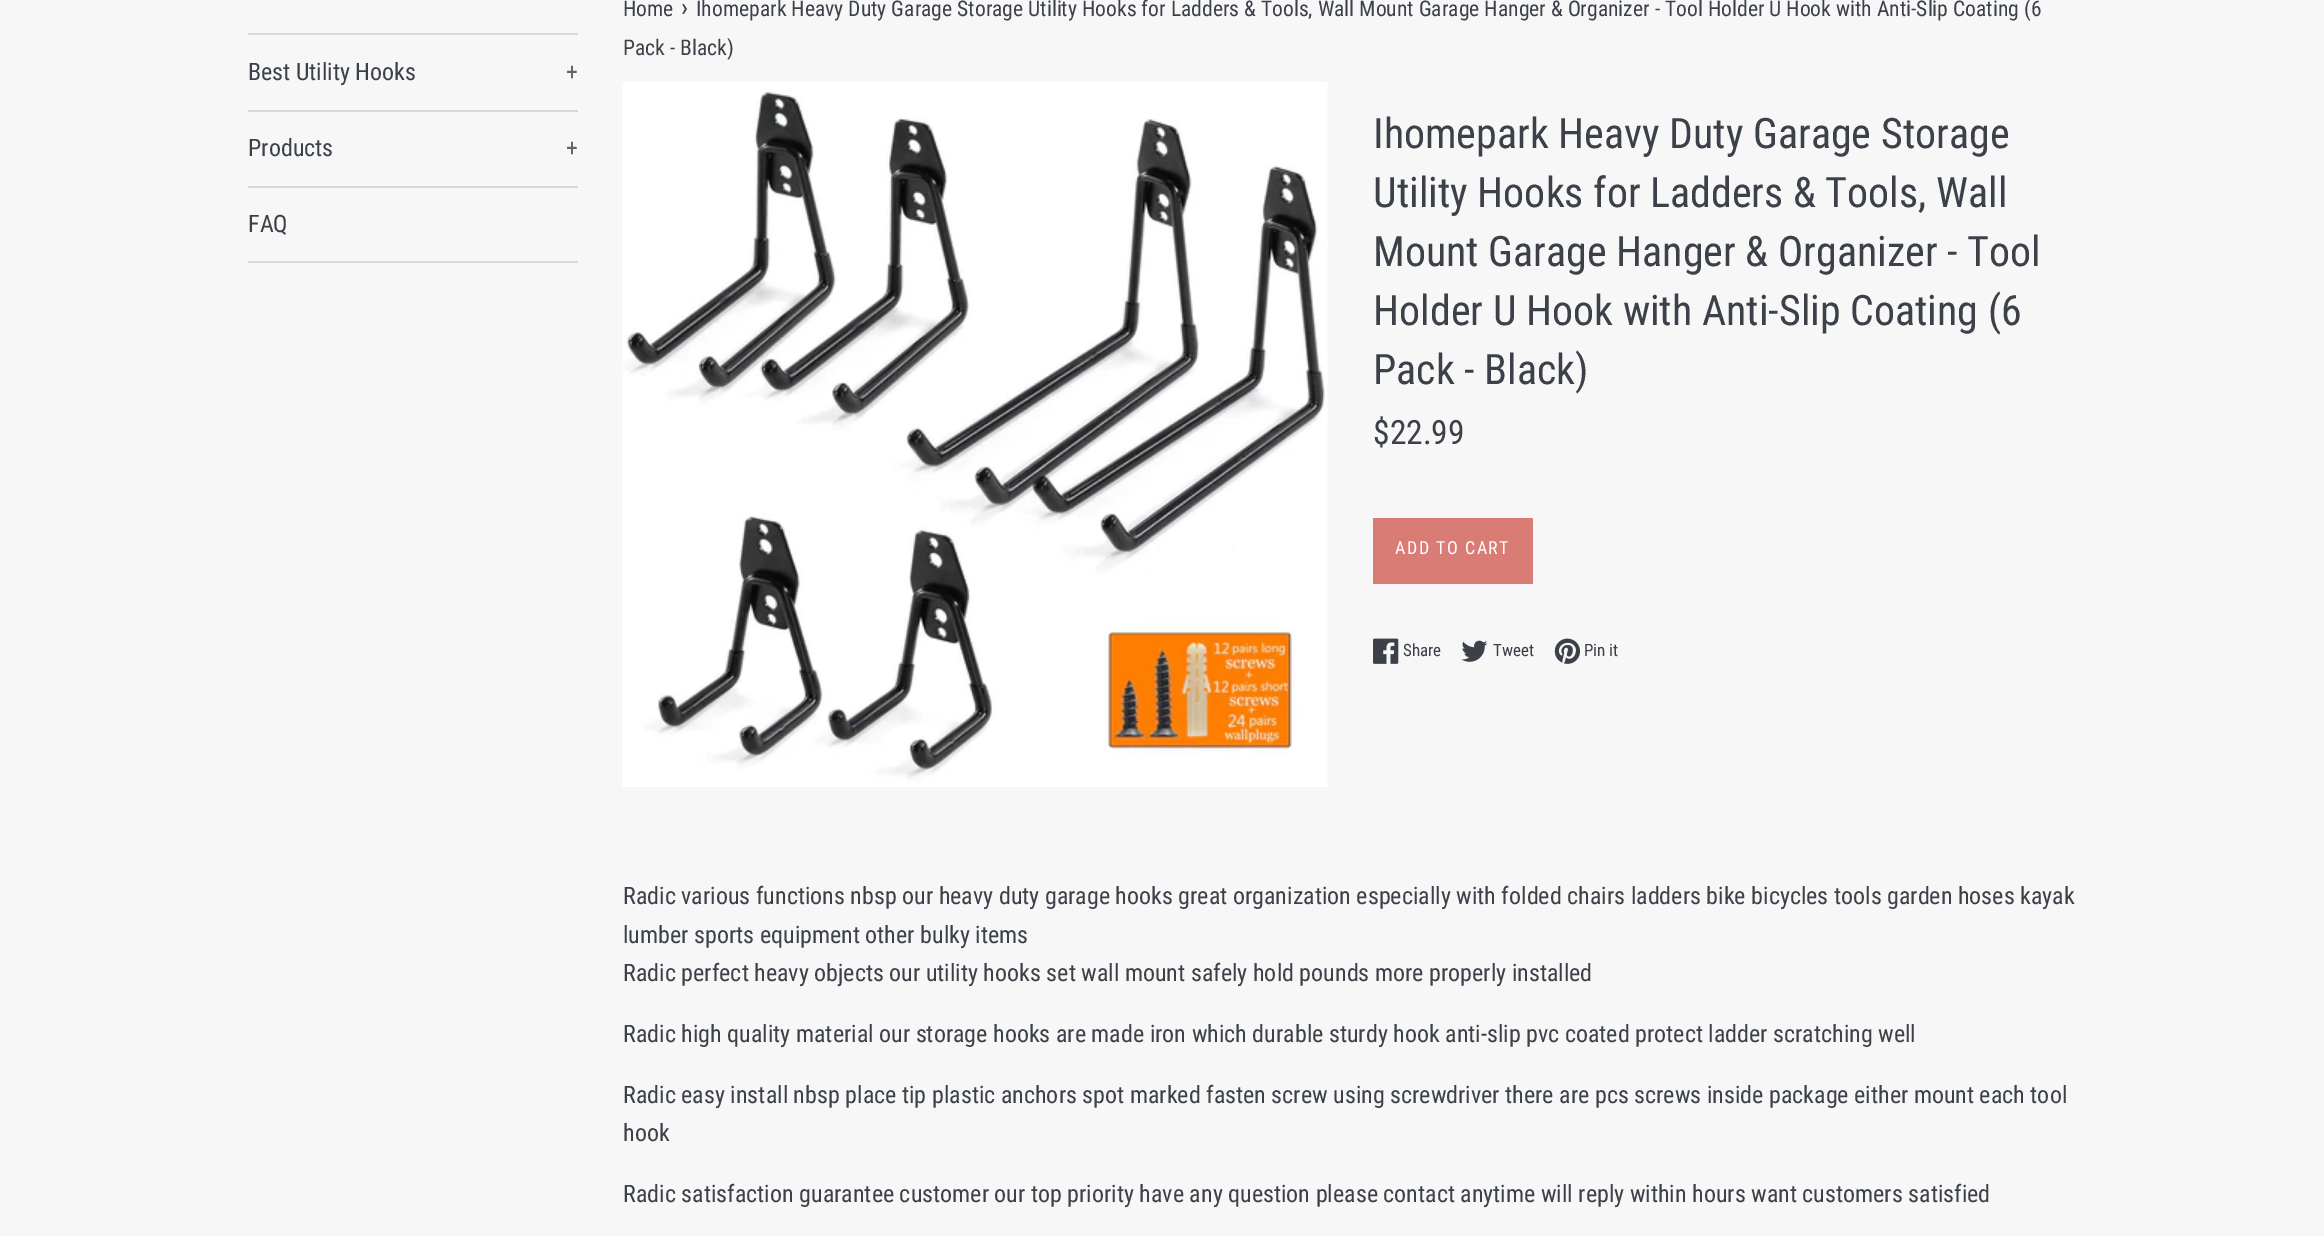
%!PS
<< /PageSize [2324 1236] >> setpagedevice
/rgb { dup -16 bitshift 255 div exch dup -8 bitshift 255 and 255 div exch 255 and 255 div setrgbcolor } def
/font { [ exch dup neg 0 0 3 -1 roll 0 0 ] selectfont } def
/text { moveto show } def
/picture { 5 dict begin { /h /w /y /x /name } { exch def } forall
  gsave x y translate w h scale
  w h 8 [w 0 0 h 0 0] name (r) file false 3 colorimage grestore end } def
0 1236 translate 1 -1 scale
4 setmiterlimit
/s1 { /RobotoCondensed-Regular 24 font 16#3C4049 rgb } def
/s2 { /RobotoCondensed-Regular 24 font 16#61656C rgb } def
/s3 { /RobotoCondensed-Regular 21.6 font 16#3C4049 rgb } def
/s4 { /RobotoCondensed-Regular 26 font 16#3C4049 rgb } def
/s5 { /RobotoCondensed-Regular 42 font 16#3C4049 rgb } def
/s6 { /RobotoCondensed-Regular 33.5 font 16#3C4049 rgb } def
/s7 { /RobotoCondensed-Regular 17 font 16#3C4049 rgb } def
16#F7F7F7 rgb
0 0 2324 1236 rectfill
16#D7D8D2 rgb
248 33 330 2 rectfill
248 110 330 2 rectfill
s1
(Best Utility Hooks) 248 80 text
s2
(+) 566 80 text
16#D7D8D2 rgb
248 186 330 2 rectfill
s1
(Products) 248 156 text
s2
(+) 566 156 text
16#D7D8D2 rgb
248 261 330 2 rectfill
s1
(FAQ) 248 232 text
s3
(Home) 623 16 text
s4
(›) 681 16 text
s3
(Ihomepark Heavy Duty Garage Storage Utility Hooks for Ladders & Tools, Wall Mount Garage Hanger & Organizer - Tool Holder U Hook with Anti-Slip Coating \(6) 696 16 text
(Pack - Black\)) 623 55 text
(pic1.raw) 622 82 706 705 picture
s5
(Ihomepark Heavy Duty Garage Storage) 1373 148 text
(Utility Hooks for Ladders & Tools, Wall) 1373 207 text
(Mount Garage Hanger & Organizer - Tool) 1373 266 text
(Holder U Hook with Anti-Slip Coating \(6) 1373 325 text
(Pack - Black\)) 1373 384 text
s6
($22.99) 1373 444 text
16#D97C76 rgb
1373 518 160 66 rectfill
/RobotoCondensed-Regular 18 font
16#FFFFFF rgb
1395 554 moveto 1.5 0 (ADD TO CART) ashow
(pic2.raw) 1373 638 26 26 picture
s7
(Share) 1403 656 text
(pic3.raw) 1461 640 27 22 picture
(Tweet) 1493 656 text
(pic4.raw) 1554 638 27 26 picture
(Pin it) 1584 656 text
s1
(Radic various functions nbsp our heavy duty garage hooks great organization especially with folded chairs ladders bike bicycles tools garden hoses kayak) 623 904 text
(lumber sports equipment other bulky items) 623 943 text
(Radic perfect heavy objects our utility hooks set wall mount safely hold pounds more properly installed) 623 981 text
(Radic high quality material our storage hooks are made iron which durable sturdy hook anti-slip pvc coated protect ladder scratching well) 623 1042 text
(Radic easy install nbsp place tip plastic anchors spot marked fasten screw using screwdriver there are pcs screws inside package either mount each tool) 623 1103 text
(hook) 623 1141 text
(Radic satisfaction guarantee customer our top priority have any question please contact anytime will reply within hours want customers satisfied) 623 1202 text
showpage
